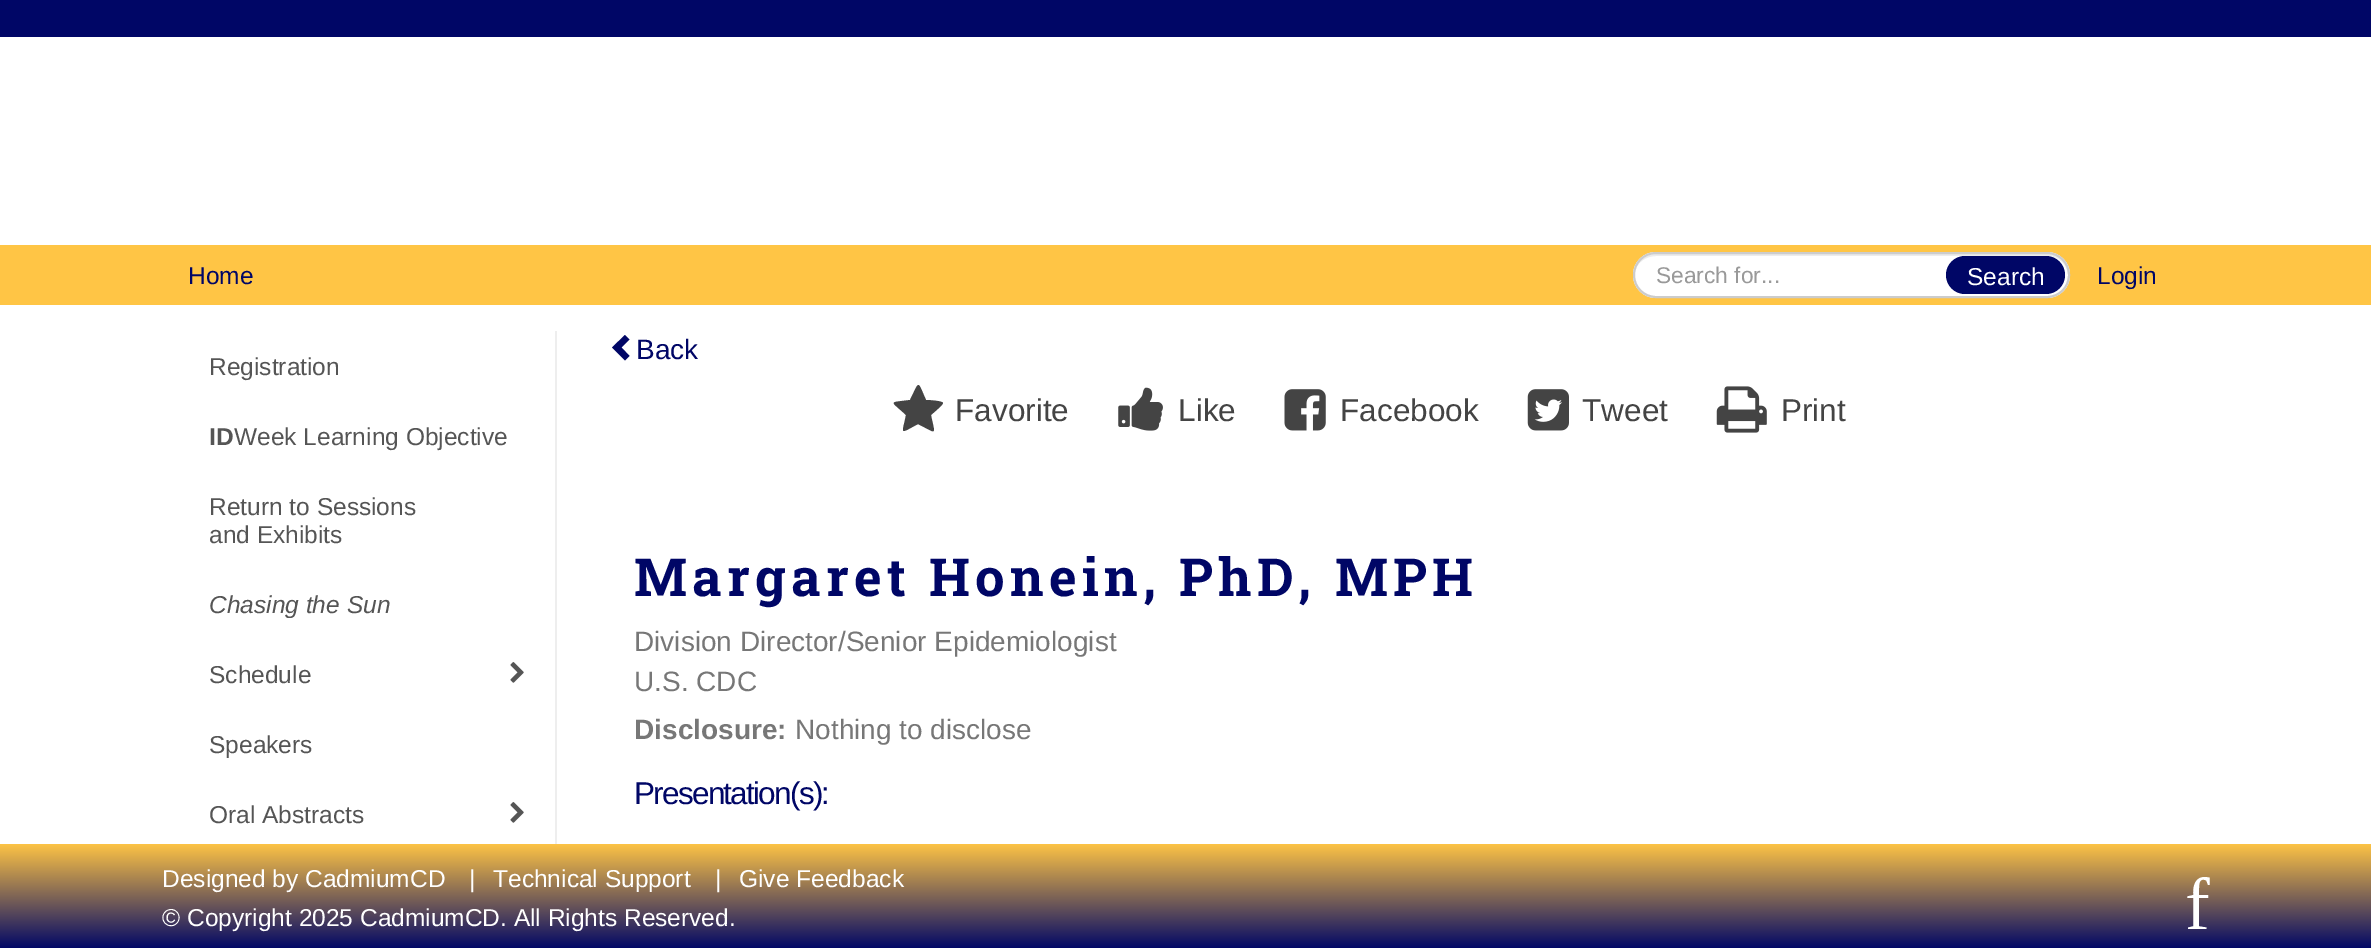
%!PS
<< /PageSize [2371 948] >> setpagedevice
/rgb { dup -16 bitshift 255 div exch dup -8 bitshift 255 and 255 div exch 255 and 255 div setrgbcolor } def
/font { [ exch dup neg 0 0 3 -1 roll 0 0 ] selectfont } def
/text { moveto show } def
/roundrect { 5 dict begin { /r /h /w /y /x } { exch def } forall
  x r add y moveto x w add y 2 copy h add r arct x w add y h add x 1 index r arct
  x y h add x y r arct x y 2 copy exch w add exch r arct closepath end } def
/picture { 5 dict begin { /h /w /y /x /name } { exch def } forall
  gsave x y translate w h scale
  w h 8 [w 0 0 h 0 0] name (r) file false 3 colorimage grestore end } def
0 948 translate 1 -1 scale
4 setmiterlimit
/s1 { /LiberationSans-Regular 24.5 font 16#000666 rgb } def
/s2 { /LiberationSans-Regular 22.75 font 16#999999 rgb } def
/s3 { /LiberationSans-Regular 24.5 font 16#FFFFFF rgb } def
/s4 { /LiberationSans-Regular 24.5 font 16#555555 rgb } def
/s5 { /LiberationSans-Bold 24.5 font 16#555555 rgb } def
/s6 { /LiberationSans-Italic 24.5 font 16#555555 rgb } def
/s7 { /LiberationSans-Regular 28 font 16#000666 rgb } def
/s8 { /LiberationSans-Regular 31.5 font 16#444444 rgb } def
/s9 { /LiberationSans-Regular 28 font 16#777777 rgb } def
/s10 { /LiberationSans-Bold 28 font 16#777777 rgb } def
/s11 { /LiberationSerif-Regular 74 font 16#FFFFFF rgb } def
16#FFFFFF rgb
0 0 2371 948 rectfill
16#000666 rgb
0 0 2371 37 rectfill
16#FFC545 rgb
0 245 2371 60 rectfill
s1
(Home) 188 284 text
16#FFFFFF rgb
1633 252 437 46 23 roundrect fill
16#ECECEC rgb
1656 256 moveto 2048 256 lineto 2059 256 2068 265 2068 276 curveto 2068 280 2067 284 2065 287 curveto 2068 283 2069 279 2069 275 curveto 2069 263 2060 254 2048 254 curveto 1656 254 lineto 1648 254 1641 259 1637 266 curveto 1641 260 1648 256 1656 256 curveto closepath fill
16#CCCCCC rgb
2 setlinewidth
1634 253 435 44 22 roundrect stroke
s2
(Search for...) 1656 283 text
16#000666 rgb
1946 256 119 38 19 roundrect fill
s3
(Search) 1967 285 text
s1
(Login) 2097 284 text
16#EEEEEE rgb
555 331 2 513 rectfill
s4
(Registration) 209 375 text
s5
(ID) 209 445 text
s4
(Week Learning Objective) 234 445 text
(Return to Sessions) 209 515 text
(and Exhibits) 209 543 text
s6
(Chasing the Sun) 209 613 text
s4
(Schedule) 209 683 text
(pic1.raw) 510 662 14 21 picture
(Speakers) 209 753 text
(Oral Abstracts) 209 823 text
(pic1.raw) 510 802 14 21 picture
16#000666 rgb
629.5 339.5 moveto 621.5 347.5 lineto 629.5 356 lineto 625 360.5 lineto 612 347.5 lineto 625 335 lineto closepath fill
s7
(Back) 636 359 text
16#444444 rgb
943 403 moveto 943 405 933 413 931 415 curveto 935 436 938 434 918 424 curveto 899 434 902 435 906 415 curveto 890 400 888 403 910 400 curveto 920 380 917 380 926 400 curveto 929 400 943 401 943 403 curveto closepath fill
s8
(Favorite) 955 421 text
(pic2.raw) 1118 387 45 44 picture
(Like) 1178 421 text
(pic3.raw) 1284 389 42 42 picture
(Facebook) 1340 421 text
(pic4.raw) 1527 389 42 42 picture
(Tweet) 1582 421 text
(pic5.raw) 1716 386 51 47 picture
(Print) 1781 421 text
/RobotoSlab-Bold 52.5 font
16#000666 rgb
634 596 moveto 5.25 0 (Margaret Honein, PhD, MPH) ashow
s9
(Division Director/Senior Epidemiologist) 634 651 text
(U.S. CDC) 634 691 text
s10
(Disclosure:) 634 739 text
s9
(Nothing to disclose) 795 739 text
/LiberationSans-Regular 31.5 font
16#000666 rgb
634 804 moveto -1.75 0 (Presentation\(s\):) ashow
gsave 0 844 moveto 2371 844 lineto 2371 948 lineto 0 948 lineto closepath clip newpath
<< /ShadingType 2 /ColorSpace /DeviceRGB /Coords [1186 843 1186 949] /Extend [true true] /Function << /FunctionType 2 /Domain [0 1] /C0 [1 0.773 0.271] /C1 [0 0.024 0.4] /N 1 >> >> shfill grestore
s3
(Designed by CadmiumCD) 162 887 text
(|) 469 887 text
(Technical Support) 493 887 text
(|) 715 887 text
(Give Feedback) 739 887 text
(© Copyright 2025 CadmiumCD. All Rights Reserved.) 162 926 text
s11
(f) 2185 929 text
showpage
